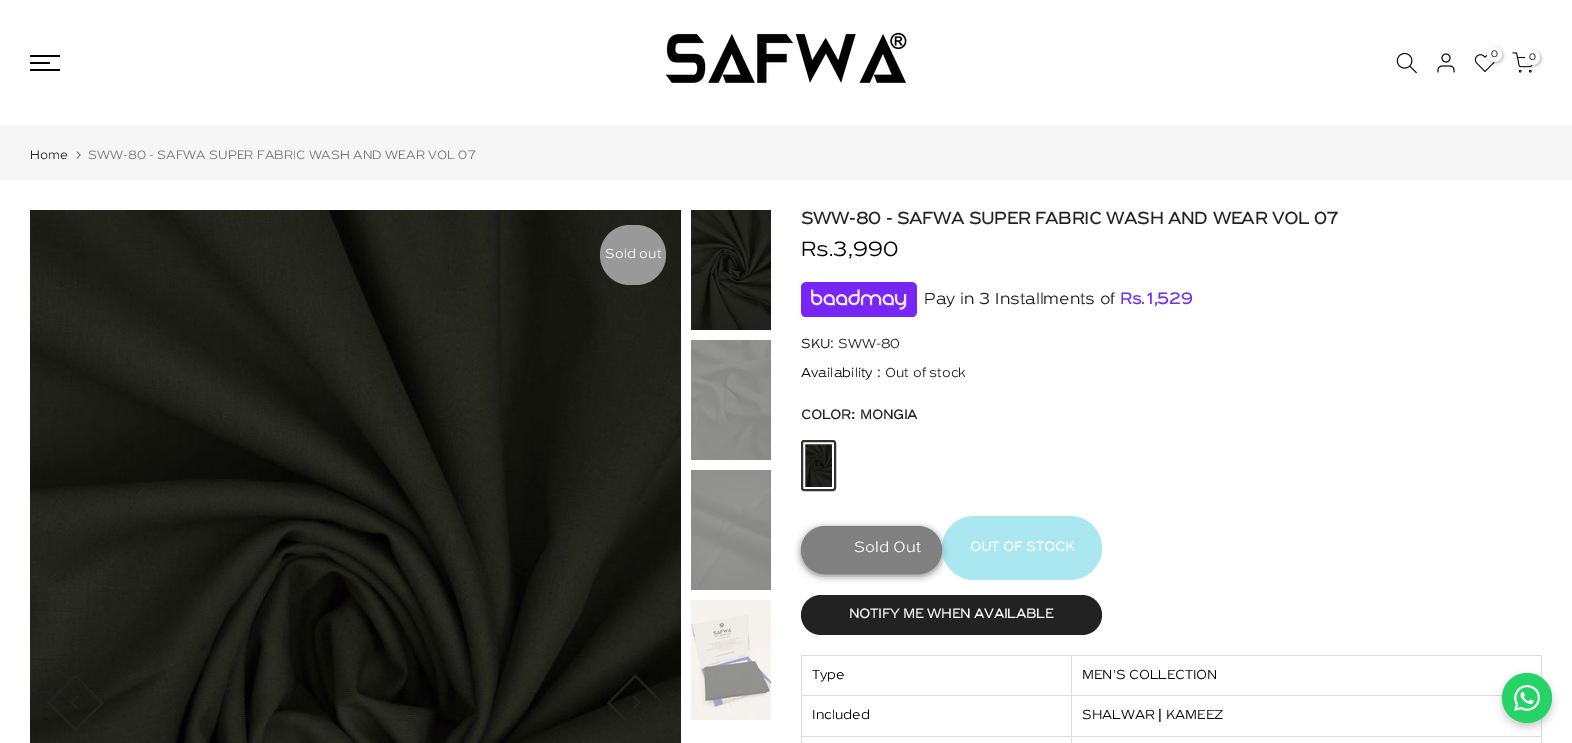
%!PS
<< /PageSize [1572 743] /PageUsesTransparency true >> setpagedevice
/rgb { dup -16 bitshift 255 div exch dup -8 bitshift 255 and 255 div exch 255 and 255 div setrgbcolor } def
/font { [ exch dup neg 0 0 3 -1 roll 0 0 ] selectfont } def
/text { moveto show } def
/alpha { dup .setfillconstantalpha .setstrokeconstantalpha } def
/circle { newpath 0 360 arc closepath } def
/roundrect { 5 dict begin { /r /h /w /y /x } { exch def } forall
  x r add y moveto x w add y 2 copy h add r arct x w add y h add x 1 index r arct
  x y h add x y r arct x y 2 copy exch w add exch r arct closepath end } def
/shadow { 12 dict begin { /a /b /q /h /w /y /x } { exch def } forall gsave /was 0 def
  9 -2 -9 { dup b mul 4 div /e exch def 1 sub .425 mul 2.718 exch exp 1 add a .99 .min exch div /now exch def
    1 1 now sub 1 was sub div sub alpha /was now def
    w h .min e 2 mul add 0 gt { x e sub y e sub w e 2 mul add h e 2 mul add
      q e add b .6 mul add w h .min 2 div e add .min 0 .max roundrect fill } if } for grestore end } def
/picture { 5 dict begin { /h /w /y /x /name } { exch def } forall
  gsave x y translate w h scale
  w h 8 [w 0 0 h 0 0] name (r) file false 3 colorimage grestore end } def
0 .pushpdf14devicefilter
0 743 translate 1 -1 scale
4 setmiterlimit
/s1 { /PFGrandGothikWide-Light 10 font 16#000000 rgb } def
/s2 { /PFGrandGothikWide-Light 13 font 16#222222 rgb } def
/s3 { /PFGrandGothikWide-Light 13 font 16#777777 rgb } def
/s4 { /PFGrandGothikWide-Light 14 font 16#FFFFFF rgb } def
/s5 { /PFGrandGothikWide-Bold 18 font 16#222222 rgb } def
/s6 { /PFGrandGothikWide-Light 22 font 16#000000 rgb } def
/s7 { /PFGrandGothikWide-Light 17 font 16#1A1A1A rgb } def
/s8 { /PFGrandGothikWide-Bold 17 font 16#702DED rgb } def
/s9 { /PFGrandGothikWide-Light 14 font 16#000000 rgb } def
/s10 { /LiberationSans-Regular 14 font 16#000000 rgb } def
/s11 { /PFGrandGothikWide-Light 14 font 16#222222 rgb } def
/s12 { /PFGrandGothikWide-Bold 14 font 16#222222 rgb } def
/s13 { /LiberationSans-Bold 14 font 16#222222 rgb } def
/s14 { /PFGrandGothikWide-Light 16 font 16#FFFFFF rgb } def
/s15 { /PFGrandGothikWide-Bold 14 font 16#FFFFFF rgb } def
16#FFFFFF rgb
0 0 1572 743 rectfill
16#000000 rgb
30 55 30 2 rectfill
30 62 20 2 rectfill
30 69 30 2 rectfill
(pic1.raw) 665 32 242 51 picture
(pic2.raw) 1396 52 21 22 picture
(pic3.raw) 1437 53 18 20 picture
(pic4.raw) 1474 54 21 18 picture
1488 48 15 15 7.5 1.5 0.3 shadow
16#FFFFFF rgb
1494.5 54.5 7.5 circle fill
s1
(0) 1491 57 text
(pic5.raw) 1512 52 21 21 picture
1526 51 15 15 7.5 1.5 0.3 shadow
16#FFFFFF rgb
1532.5 57.5 7.5 circle fill
s1
(0) 1529 60 text
16#F6F6F6 rgb
0 125 1572 55 rectfill
s2
(Home) 30 159 text
(pic6.raw) 76 151 5 8 picture
s3
(SWW-80 - SAFWA SUPER FABRIC WASH AND WEAR VOL 07) 88 159 text
(pic7.raw) 30 210 651 533 picture
16#222222 rgb
2 setlinewidth
75.5 676 moveto 102.5 703 lineto 75.5 729.5 lineto 48.5 703 lineto closepath stroke
(pic8.raw) 70 696 8 13 picture
608.5 703 moveto 635.5 676 lineto 662.5 703 lineto 635.5 729.5 lineto closepath stroke
(pic9.raw) 633 695 8 14 picture
16#999999 rgb
600 225 66 60 30 roundrect fill
s4
(Sold out) 605 258 text
(pic10.raw) 691 210 80 120 picture
(pic11.raw) 691 340 80 120 picture
(pic12.raw) 691 470 80 120 picture
(pic13.raw) 691 600 80 120 picture
s5
(SWW-80 - SAFWA SUPER FABRIC WASH AND WEAR VOL 07) 801 224 text
s6
(Rs.3,990) 801 256 text
(pic14.raw) 801 282 116 35 picture
s7
(Pay in 3 Installments of) 924 304 text
s8
(Rs.) 1120 304 text
(1,529) 1147 304 text
s9
(SKU) 801 348 text
s10
(:) 830 348 text
s11
(SWW-80) 838 348 text
s9
(Availability) 801 377 text
s10
(:) 877 377 text
s11
(Out of stock) 885 377 text
s12
(COLOR) 801 419 text
s13
(:) 851 419 text
s12
(MONGIA) 860 419 text
(pic15.raw) 803 442 31 47 picture
16#FFFFFF rgb
804 443 29 45 rectstroke
16#333333 rgb
802 441 33 49 2 roundrect stroke
16#808080 rgb
801 528 141 48 24 3.5 1 shadow
801.5 526.5 140 47 23.5 roundrect gsave fill grestore
1 setlinewidth
stroke
s14
(Sold Out) 854 552 text
0.5 alpha
16#56CFE1 rgb
942 516 160 64 32 roundrect fill
1 alpha
s15
(OUT OF STOCK) 970 551 text
16#222222 rgb
801 595 301 40 20 roundrect fill
s15
(NOTIFY ME WHEN AVAILABLE) 849 618 text
16#DDDDDD rgb
801 655 741 1 rectfill
1541 655 1 88 rectfill
801 655 1 88 rectfill
1071 736 1 7 rectfill
1071 736 471 1 rectfill
1071 695 1 42 rectfill
1071 695 432 1 rectfill
1071 655 1 41 rectfill
801 695 271 1 rectfill
s9
(Type) 812 679 text
(MEN'S COLLECTION) 1082 679 text
16#DDDDDD rgb
801 736 271 1 rectfill
s9
(Included) 812 719 text
(SHALWAR) 1082 719 text
s10
(|) 1158 719 text
s9
(KAMEEZ) 1166 719 text
1502 677 50 50 25 4 0.2 shadow
16#25D366 rgb
1527 698 25 circle fill
(pic16.raw) 1514 685 26 26 picture
.poppdf14devicefilter showpage
